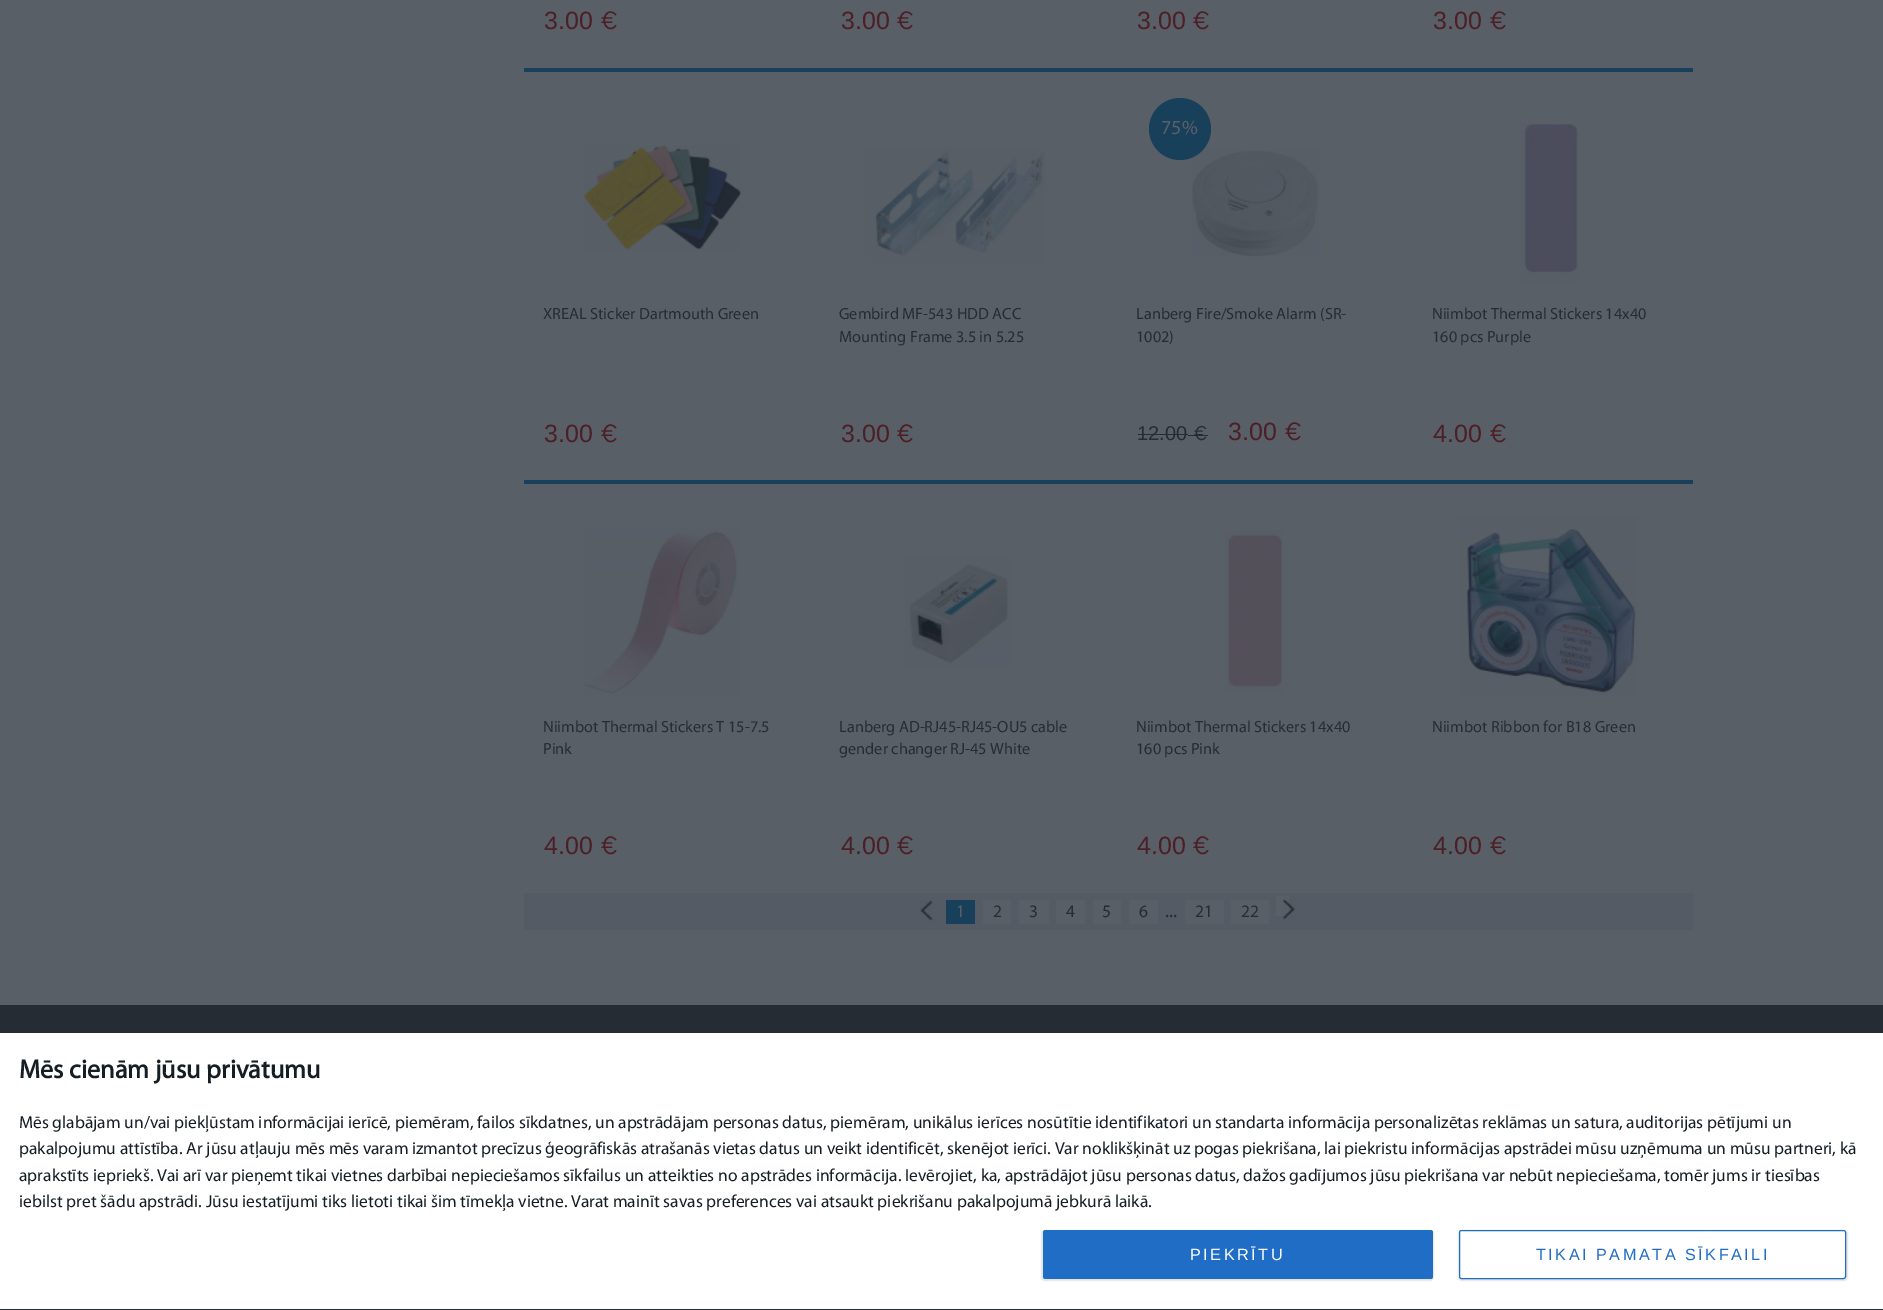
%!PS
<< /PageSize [1883 1310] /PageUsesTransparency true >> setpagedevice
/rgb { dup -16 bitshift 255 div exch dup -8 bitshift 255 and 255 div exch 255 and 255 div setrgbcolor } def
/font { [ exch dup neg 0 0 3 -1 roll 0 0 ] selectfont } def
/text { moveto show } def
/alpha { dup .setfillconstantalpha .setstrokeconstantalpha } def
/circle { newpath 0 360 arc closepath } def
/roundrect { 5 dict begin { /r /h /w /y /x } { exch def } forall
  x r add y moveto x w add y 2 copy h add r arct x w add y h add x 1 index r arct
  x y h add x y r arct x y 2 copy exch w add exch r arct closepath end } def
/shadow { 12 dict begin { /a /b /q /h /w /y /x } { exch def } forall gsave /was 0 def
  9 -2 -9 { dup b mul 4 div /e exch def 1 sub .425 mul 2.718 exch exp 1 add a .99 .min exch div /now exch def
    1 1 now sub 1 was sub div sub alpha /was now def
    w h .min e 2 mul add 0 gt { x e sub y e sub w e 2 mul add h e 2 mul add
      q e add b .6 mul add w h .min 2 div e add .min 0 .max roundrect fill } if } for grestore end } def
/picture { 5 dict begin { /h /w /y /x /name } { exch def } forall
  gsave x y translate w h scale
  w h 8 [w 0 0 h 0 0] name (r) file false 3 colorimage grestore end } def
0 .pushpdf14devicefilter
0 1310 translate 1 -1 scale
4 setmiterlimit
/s1 { /LiberationSans-Regular 25 font 16#4C1F27 rgb } def
/s2 { /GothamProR-Regular 25 font 16#4C1F27 rgb } def
/s3 { /Myriad-Regular 16.25 font 16#262C34 rgb } def
/s4 { /Myriad-Regular 20 font 16#595F67 rgb } def
/s5 { /LiberationSans-Regular 20 font 16#262C34 rgb } def
/s6 { /GothamProR-Regular 20 font 16#262C34 rgb } def
/s7 { /Myriad-Regular 17.5 font 16#595F67 rgb } def
/s8 { /Myriad-Regular 17.5 font 16#262C34 rgb } def
/s9 { /Myriad-Regular 20 font 16#262C34 rgb } def
/s10 { /Myriad-Bold 26.25 font 16#141E23 rgb } def
/s11 { /Myriad-Regular 17.5 font 16#141E23 rgb } def
16#595F67 rgb
0 0 1883 1310 rectfill
s1
(3.00) 544 29 text
s2
(€) 600 29 text
s1
(3.00) 841 29 text
s2
(€) 896 29 text
s1
(3.00) 1137 29 text
s2
(€) 1192 29 text
s1
(3.00) 1433 29 text
s2
(€) 1489 29 text
16#19405A rgb
524 68 1169 4 rectfill
(pic1.raw) 583 145 159 105 picture
s3
(XREAL Sticker Dartmouth Green) 543 319 text
s1
(3.00) 544 442 text
s2
(€) 600 442 text
(pic2.raw) 865 146 181 117 picture
s3
(Gembird MF-543 HDD ACC) 839 319 text
(Mounting Frame 3.5 in 5.25) 839 342 text
s1
(3.00) 841 442 text
s2
(€) 896 442 text
(pic3.raw) 1191 150 128 107 picture
16#19405A rgb
1180 129 31 circle fill
s4
(75%) 1161 134 text
s3
(Lanberg Fire/Smoke Alarm \(SR-) 1136 319 text
(1002\)) 1136 342 text
s5
(12.00) 1137 440 text
1138 434 50 1 rectfill
1188 435 20 1 rectfill
s6
(€) 1193 440 text
s1
(3.00) 1228 440 text
s2
(€) 1284 440 text
(pic4.raw) 1519 123 59 161 picture
s3
(Niimbot Thermal Stickers 14x40) 1432 319 text
(160 pcs Purple) 1432 342 text
s1
(4.00) 1433 442 text
s2
(€) 1489 442 text
16#19405A rgb
524 480 1169 4 rectfill
(pic5.raw) 583 527 155 169 picture
s3
(Niimbot Thermal Stickers T 15-7.5) 543 732 text
(Pink) 543 754 text
s1
(4.00) 544 854 text
s2
(€) 600 854 text
(pic6.raw) 905 558 109 108 picture
s3
(Lanberg AD-RJ45-RJ45-OU5 cable) 839 732 text
(gender changer RJ-45 White) 839 754 text
s1
(4.00) 841 854 text
s2
(€) 896 854 text
(pic7.raw) 1225 530 58 163 picture
s3
(Niimbot Thermal Stickers 14x40) 1136 732 text
(160 pcs Pink) 1136 754 text
s1
(4.00) 1137 854 text
s2
(€) 1192 854 text
(pic8.raw) 1458 517 180 180 picture
s3
(Niimbot Ribbon for B18 Green) 1432 732 text
s1
(4.00) 1433 854 text
s2
(€) 1489 854 text
16#545B64 rgb
524 893 1169 37 rectfill
(pic9.raw) 920 900 13 21 picture
16#19405A rgb
946 900 29 24 rectfill
s7
(1) 956 917 text
983 900 28 24 rectfill
s8
(2) 993 917 text
16#595F67 rgb
1019 900 30 24 rectfill
s8
(3) 1029 917 text
16#595F67 rgb
1056 900 29 24 rectfill
s8
(4) 1066 917 text
16#595F67 rgb
1093 900 28 24 rectfill
s8
(5) 1102 917 text
16#595F67 rgb
1129 900 29 24 rectfill
s8
(6) 1139 917 text
s9
(...) 1165 917 text
16#595F67 rgb
1185 900 39 24 rectfill
s8
(21) 1195 917 text
16#595F67 rgb
1231 900 38 24 rectfill
s8
(22) 1241 917 text
16#595F67 rgb
1276 896 13 20 rectfill
(pic10.raw) 1282 899 13 21 picture
16#262C34 rgb
0 1005 1883 305 rectfill
16#FFFFFF rgb
0 1033 1883 276 rectfill
s10
(Mēs cienām jūsu privātumu) 19 1078 text
s11
(Mēs glabājam un/vai piekļūstam informācijai ierīcē, piemēram, failos sīkdatnes, un apstrādājam personas datus, piemēram, unikālus ierīces nosūtītie identifikatori un standarta informācija personalizētas reklāmas un satura, auditorijas pētījumi un) 19 1128 text
(pakalpojumu attīstība. Ar jūsu atļauju mēs mēs varam izmantot precīzus ģeogrāfiskās atrašanās vietas datus un veikt identificēt, skenējot ierīci. Var noklikšķināt uz pogas piekrišana, lai piekristu informācijas apstrādei mūsu uzņēmuma un mūsu partneri, kā) 19 1154 text
(aprakstīts iepriekš. Vai arī var pieņemt tikai vietnes darbībai nepieciešamos sīkfailus un atteikties no apstrādes informācija. Ievērojiet, ka, apstrādājot jūsu personas datus, dažos gadījumos jūsu piekrišana var nebūt nepieciešama, tomēr jums ir tiesības) 19 1181 text
(iebilst pret šādu apstrādi. Jūsu iestatījumi tiks lietoti tikai šim tīmekļa vietne. Varat mainīt savas preferences vai atsaukt piekrišanu pakalpojumā jebkurā laikā.) 19 1207 text
16#000000 rgb
1041 1230 393 51 4 0.5 0.1 shadow
16#206DC5 rgb
1043 1230 390 49 2.5 roundrect fill
/LiberationSans-Regular 16.25 font
16#FFFFFF rgb
1190 1260 moveto 2.5 0 (PIEKRĪTU) ashow
16#000000 rgb
1458 1230 390 51 4 0.5 0.1 shadow
16#FFFFFF rgb
1459.5 1230.5 386 48 2 roundrect gsave fill grestore
16#206DC5 rgb
stroke
1536 1260 moveto 2.5 0 (TIKAI PAMATA SĪKFAILI) ashow
.poppdf14devicefilter showpage
